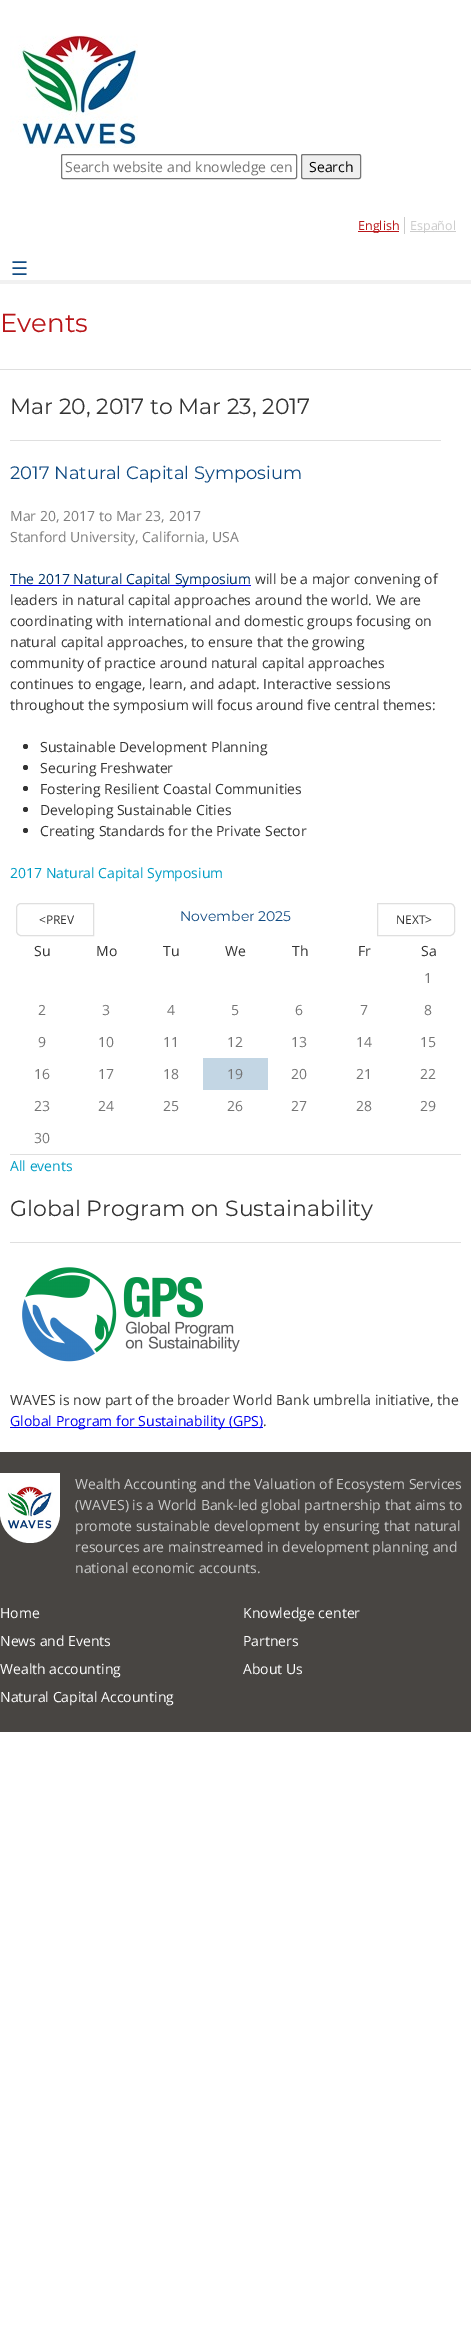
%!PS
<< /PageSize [471 2346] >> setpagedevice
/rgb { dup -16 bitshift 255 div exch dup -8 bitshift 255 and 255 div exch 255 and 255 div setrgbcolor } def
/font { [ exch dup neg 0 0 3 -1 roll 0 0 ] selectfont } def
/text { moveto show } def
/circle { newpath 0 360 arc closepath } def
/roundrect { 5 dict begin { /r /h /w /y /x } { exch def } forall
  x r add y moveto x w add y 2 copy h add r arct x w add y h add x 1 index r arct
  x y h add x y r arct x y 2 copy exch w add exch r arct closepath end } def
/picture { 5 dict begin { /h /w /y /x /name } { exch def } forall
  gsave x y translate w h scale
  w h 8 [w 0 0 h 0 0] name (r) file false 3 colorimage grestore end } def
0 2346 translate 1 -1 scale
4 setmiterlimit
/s1 { /OpenSans-Regular 14 font 16#757575 rgb } def
/s2 { /OpenSans-Regular 14 font 16#000000 rgb } def
/s3 { /OpenSans-Regular 12.5 font 16#B91619 rgb } def
/s4 { /OpenSans-Regular 12.5 font 16#CCCCCC rgb } def
/s5 { /DejaVuSans-Regular 19 font 16#104A82 rgb } def
/s6 { /Montserrat-Regular 26 font 16#B91619 rgb } def
/s7 { /Montserrat-Regular 22 font 16#333333 rgb } def
/s8 { /Montserrat-Regular 18 font 16#104A82 rgb } def
/s9 { /OpenSans-Regular 14 font 16#7E7E7E rgb } def
/s10 { /OpenSans-Regular 14 font 16#003366 rgb } def
/s11 { /OpenSans-Regular 14 font 16#333333 rgb } def
/s12 { /OpenSans-Regular 14 font 16#009DC5 rgb } def
/s13 { /Montserrat-Regular 14 font 16#104A82 rgb } def
/s14 { /OpenSans-Regular 12 font 16#333333 rgb } def
/s15 { /OpenSans-Regular 14 font 16#0000EE rgb } def
/s16 { /OpenSans-Regular 14 font 16#CCCCCC rgb } def
/s17 { /OpenSans-Regular 14 font 16#FFFFFF rgb } def
16#FFFFFF rgb
0 0 471 2346 rectfill
(pic1.raw) 10 35 128 113 picture
16#767676 rgb
61.5 154.5 235 24 1.5 roundrect stroke
s1
(Search website and knowledge cen) 65 172 text
16#EFEFEF rgb
301.5 154.5 59 24 1.5 roundrect gsave fill grestore
16#767676 rgb
stroke
s2
(Search) 309 172 text
16#B91619 rgb
358 231 41 1 rectfill
s3
(English) 358 230 text
16#CCCCCC rgb
404 217 1 17 rectfill
410 231 46 1 rectfill
(Español) 410 230 text
s5
(☰) 11 275 text
16#F1F1F1 rgb
0 280 471 4 rectfill
16#DFDFDF rgb
0 369 471 1 rectfill
s6
(Events) 0 332 text
16#DFDFDF rgb
10 440 431 1 rectfill
s7
(Mar 20, 2017 to Mar 23, 2017) 10 414 text
s8
(2017 Natural Capital Symposium) 10 479 text
s9
(Mar 20, 2017 to Mar 23, 2017) 10 521 text
(Stanford University, California, USA) 10 542 text
16#0000EE rgb
10 585 241 1 rectfill
s10
(The 2017 Natural Capital Symposium) 10 584 text
s11
(will be a major convening of) 255 584 text
(leaders in natural capital approaches around the world. We are) 10 605 text
(coordinating with international and domestic groups focusing on) 10 626 text
(natural capital approaches, to ensure that the growing) 10 647 text
(community of practice around natural capital approaches) 10 668 text
(continues to engage, learn, and adapt. Interactive sessions) 10 689 text
(throughout the symposium will focus around five central themes:) 10 710 text
25.5 746.5 2.5 circle fill
(Sustainable Development Planning) 40 752 text
25.5 767.5 2.5 circle fill
(Securing Freshwater) 40 773 text
25.5 788.5 2.5 circle fill
(Fostering Resilient Coastal Communities) 40 794 text
25.5 809.5 2.5 circle fill
(Developing Sustainable Cities) 40 815 text
25.5 830.5 2.5 circle fill
(Creating Standards for the Private Sector) 40 836 text
s12
(2017 Natural Capital Symposium) 10 878 text
s13
(November 2025) 180 921 text
16#DFDFDF rgb
21 903.5 moveto 93.5 903.5 lineto 93.5 935.5 lineto 21 935.5 lineto 18.5 935.5 16.5 933.5 16.5 931 curveto 16.5 908 lineto 16.5 905.5 18.5 903.5 21 903.5 curveto closepath stroke
s14
(<PREV) 39 924 text
16#DFDFDF rgb
377.5 903.5 moveto 450 903.5 lineto 452.5 903.5 454.5 905.5 454.5 908 curveto 454.5 931 lineto 454.5 933.5 452.5 935.5 450 935.5 curveto 377.5 935.5 lineto closepath stroke
s14
(NEXT>) 396 924 text
16#DFDFDF rgb
10 1154 451 1 rectfill
s11
(Su) 34 956 text
(Mo) 96 956 text
(Tu) 163 956 text
(We) 225 956 text
(Th) 292 956 text
(Fr) 358 956 text
(Sa) 421 956 text
s1
(1) 424 983 text
(2) 38 1015 text
(3) 102 1015 text
(4) 167 1015 text
(5) 231 1015 text
(6) 295 1015 text
(7) 360 1015 text
(8) 424 1015 text
(9) 38 1047 text
(10) 98 1047 text
(11) 163 1047 text
(12) 227 1047 text
(13) 291 1047 text
(14) 356 1047 text
(15) 420 1047 text
(16) 34 1079 text
(17) 98 1079 text
(18) 163 1079 text
16#C3D6E4 rgb
203 1058 65 32 rectfill
s1
(19) 227 1079 text
(20) 291 1079 text
(21) 356 1079 text
(22) 420 1079 text
(23) 34 1111 text
(24) 98 1111 text
(25) 163 1111 text
(26) 227 1111 text
(27) 291 1111 text
(28) 356 1111 text
(29) 420 1111 text
(30) 34 1143 text
s12
(All events) 10 1171 text
16#DFDFDF rgb
10 1242 451 1 rectfill
s7
(Global Program on Sustainability) 10 1216 text
(pic2.raw) 22 1267 218 95 picture
s11
(WAVES is now part of the broader World Bank umbrella initiative, the) 10 1405 text
16#0000EE rgb
10 1427 253 1 rectfill
(Global Program for Sustainability \(GPS\)) 10 1426 text
s11
(.) 263 1426 text
16#484542 rgb
0 1452 471 280 rectfill
16#FFFFFF rgb
0 1473 moveto 60 1473 lineto 60 1513 lineto 60 1529.5 46.5 1543 30 1543 curveto 13.5 1543 0 1529.5 0 1513 curveto closepath fill
(pic3.raw) 5 1486 50 47 picture
s16
(Wealth Accounting and the Valuation of Ecosystem Services) 75 1489 text
(\(WAVES\) is a World Bank-led global partnership that aims to) 75 1510 text
(promote sustainable development by ensuring that natural) 75 1531 text
(resources are mainstreamed in development planning and) 75 1552 text
(national economic accounts.) 75 1573 text
s17
(Home) 0 1618 text
(Knowledge center) 243 1618 text
(News and Events) 0 1646 text
(Partners) 243 1646 text
(Wealth accounting) 0 1674 text
(About Us) 243 1674 text
(Natural Capital Accounting) 0 1702 text
showpage
